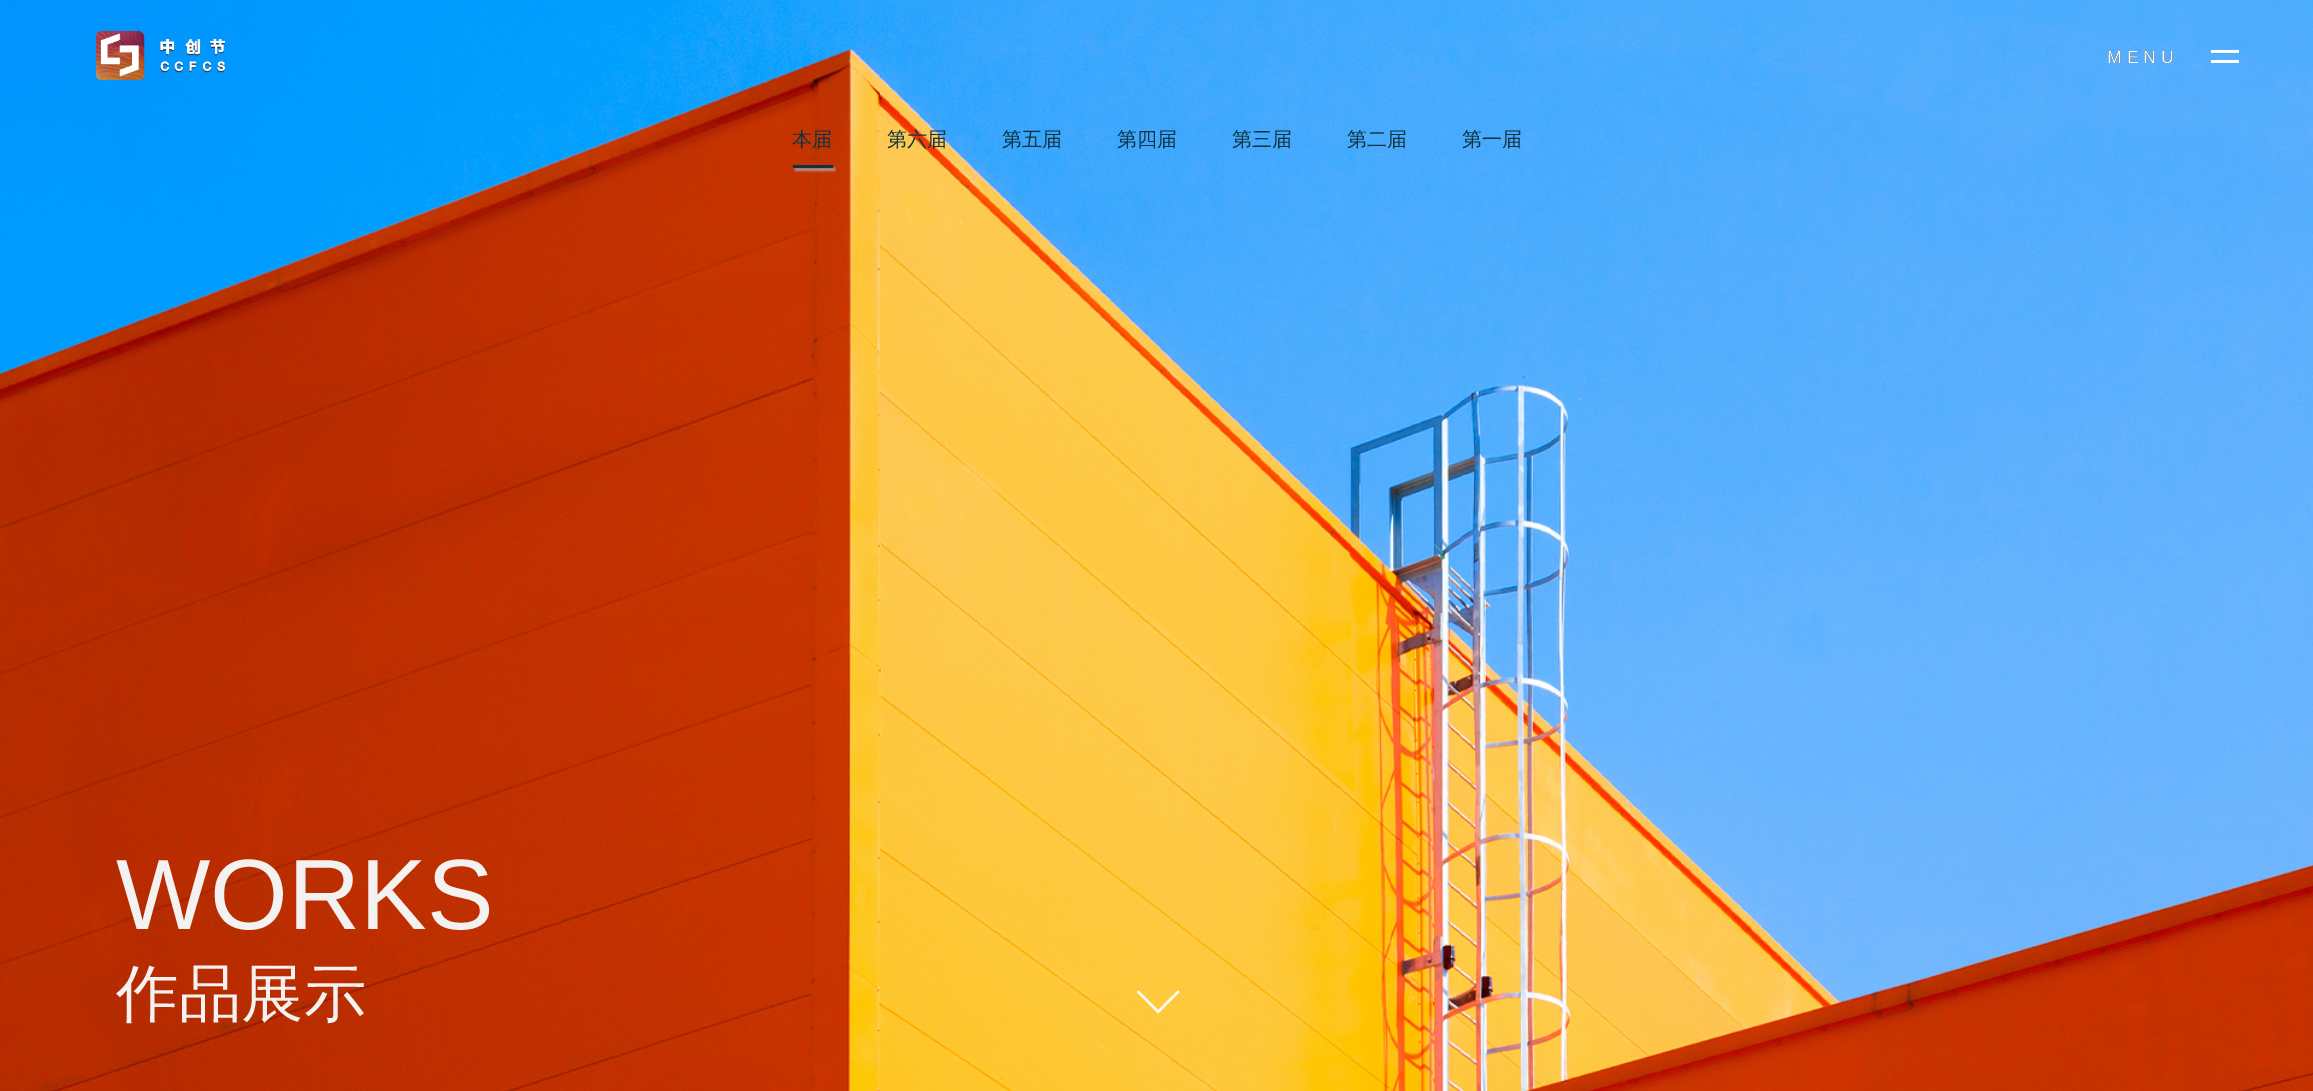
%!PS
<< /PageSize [2313 1091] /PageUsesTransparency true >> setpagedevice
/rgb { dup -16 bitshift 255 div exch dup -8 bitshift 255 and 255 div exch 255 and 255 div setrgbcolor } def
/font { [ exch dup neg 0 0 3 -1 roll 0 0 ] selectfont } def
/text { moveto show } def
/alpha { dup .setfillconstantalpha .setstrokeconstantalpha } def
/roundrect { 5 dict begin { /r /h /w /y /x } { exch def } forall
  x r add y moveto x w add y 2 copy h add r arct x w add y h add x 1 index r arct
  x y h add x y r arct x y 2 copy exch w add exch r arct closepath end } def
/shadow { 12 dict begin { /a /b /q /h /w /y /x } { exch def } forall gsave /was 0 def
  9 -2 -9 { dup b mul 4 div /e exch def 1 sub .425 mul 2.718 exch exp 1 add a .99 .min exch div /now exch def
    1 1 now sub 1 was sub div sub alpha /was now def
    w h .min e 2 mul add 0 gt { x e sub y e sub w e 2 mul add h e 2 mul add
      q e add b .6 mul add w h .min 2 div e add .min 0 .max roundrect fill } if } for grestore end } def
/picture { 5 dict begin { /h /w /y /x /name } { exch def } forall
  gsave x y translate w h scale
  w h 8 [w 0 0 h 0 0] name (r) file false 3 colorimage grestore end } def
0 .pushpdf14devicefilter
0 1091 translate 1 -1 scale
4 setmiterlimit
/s1 { /WenQuanYiZenHei-Medium 20 font 16#10333F rgb } def
/s2 { /LiberationSans-Regular 100 font 16#F3F2F0 rgb } def
/s3 { /WenQuanYiZenHei-Medium 62.5 font 16#F3F2F0 rgb } def
16#FFFFFF rgb
0 0 2313 1091 rectfill
(pic3.raw) 0 0 2313 1091 picture
(pic1.raw) 96 32 130 49 picture
/LiberationSans-Regular 17.5 font
16#000000 rgb
2107 63 moveto 5 0 (MENU) ashow
s1
(本届) 792 146 text
(第六届) 887 146 text
(第五届) 1002 146 text
(第四届) 1117 146 text
(第三届) 1232 146 text
(第二届) 1347 146 text
(第一届) 1462 146 text
16#A8A8A9 rgb
795 168 40 3 0 1 0.84 shadow
16#10333F rgb
793 165 40 3 rectfill
(pic2.raw) 95 30 130 49 picture
/LiberationSans-Regular 17.5 font
16#FFFFFF rgb
2107 63 moveto 5 0 (MENU) ashow
2211 50 28 3 rectfill
2211 60 28 3 rectfill
s2
(WORKS) 116 929 text
s3
(作品展示) 116 1015 text
(pic4.raw) 1137 990 43 24 picture
.poppdf14devicefilter showpage
